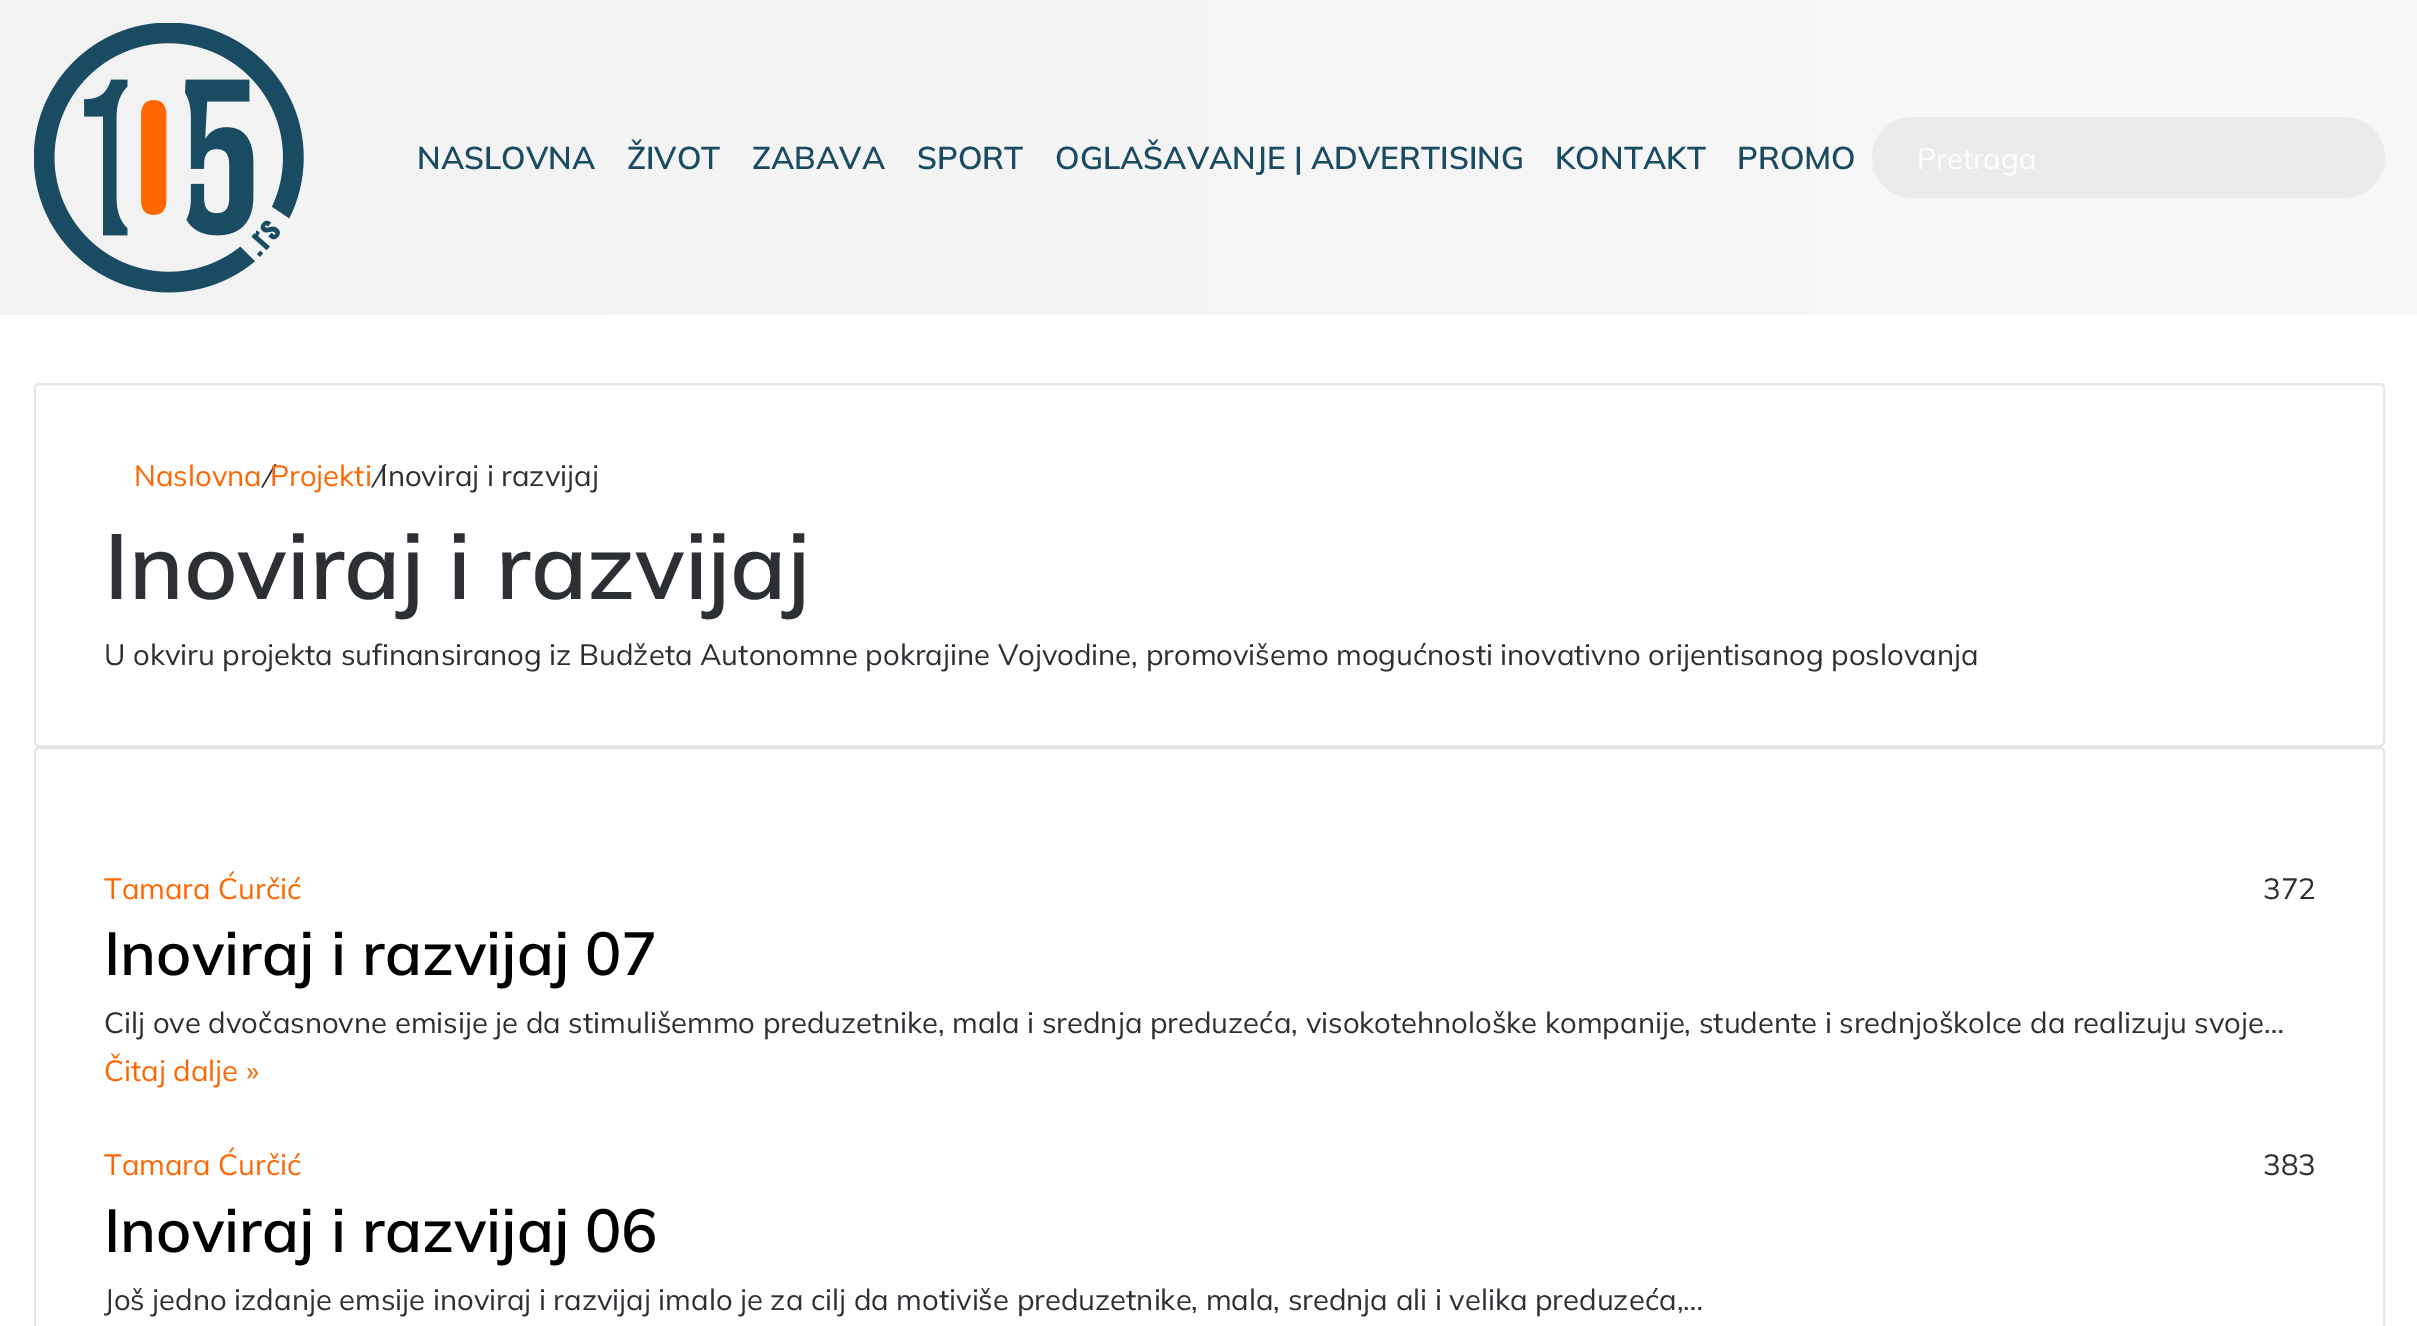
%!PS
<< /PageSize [2417 1326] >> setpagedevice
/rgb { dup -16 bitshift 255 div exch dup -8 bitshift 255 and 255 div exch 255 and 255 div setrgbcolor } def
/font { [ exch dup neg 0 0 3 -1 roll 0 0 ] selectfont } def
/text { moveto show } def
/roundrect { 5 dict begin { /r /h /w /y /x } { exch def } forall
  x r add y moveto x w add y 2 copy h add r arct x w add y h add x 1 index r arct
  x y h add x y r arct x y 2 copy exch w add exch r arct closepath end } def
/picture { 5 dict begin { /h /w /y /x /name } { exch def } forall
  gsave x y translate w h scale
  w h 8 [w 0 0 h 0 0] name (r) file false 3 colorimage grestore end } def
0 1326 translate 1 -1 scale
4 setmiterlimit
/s1 { /Mulish-SemiBold 31.5 font 16#194B63 rgb } def
/s2 { /Mulish-Regular 29.25 font 16#FFFFFF rgb } def
/s3 { /Mulish-Regular 29.25 font 16#FF6600 rgb } def
/s4 { /Mulish-Italic 29.25 font 16#2C2F34 rgb } def
/s5 { /Mulish-Regular 29.25 font 16#2C2F34 rgb } def
/s6 { /Mulish-SemiBold 92.25 font 16#2C2F34 rgb } def
/s7 { /Mulish-SemiBold 60.75 font 16#000000 rgb } def
16#FFFFFF rgb
0 0 2417 1326 rectfill
gsave 0 0 moveto 2417 0 lineto 2417 315 lineto 0 315 lineto closepath clip newpath
<< /ShadingType 2 /ColorSpace /DeviceRGB /Coords [0 158 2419 157] /Extend [true true] /Function << /FunctionType 2 /Domain [0 1] /C0 [0.949 0.949 0.949] /C1 [0.973 0.973 0.973] /N 1 >> >> shfill grestore
(pic1.raw) 34 23 270 270 picture
s1
(NASLOVNA) 417 169 text
(ŽIVOT) 627 169 text
(ZABAVA) 752 169 text
(SPORT) 917 169 text
(OGLAŠAVANJE | ADVERTISING) 1055 169 text
(KONTAKT) 1555 169 text
(PROMO) 1737 169 text
16#EBEBEB rgb
1872 117 513 81 40.5 roundrect fill
s2
(Pretraga) 1917 169 text
16#E6E6E6 rgb
2 setlinewidth
35 384 2349 362 4 roundrect stroke
s3
(Naslovna) 134 486 text
s4
(/) 262 486 text
s3
(Projekti) 270 486 text
s4
(/) 372 486 text
s5
(Inoviraj i razvijaj) 380 486 text
s6
(Inoviraj i razvijaj) 104 599 text
s5
(U okviru projekta sufinansiranog iz Budžeta Autonomne pokrajine Vojvodine, promovišemo mogućnosti inovativno orijentisanog poslovanja) 104 665 text
16#E6E6E6 rgb
35 748 2349 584 4 roundrect stroke
s3
(Tamara Ćurčić) 104 899 text
s5
(372) 2263 899 text
s7
(Inoviraj i razvijaj 07) 104 975 text
s5
(Cilj ove dvočasnovne emisije je da stimulišemmo preduzetnike, mala i srednja preduzeća, visokotehnološke kompanije, studente i srednjoškolce da realizuju svoje…) 104 1033 text
s3
(Čitaj dalje ») 104 1081 text
(Tamara Ćurčić) 104 1175 text
s5
(383) 2263 1175 text
s7
(Inoviraj i razvijaj 06) 104 1252 text
s5
(Još jedno izdanje emsije inoviraj i razvijaj imalo je za cilj da motiviše preduzetnike, mala, srednja ali i velika preduzeća,…) 104 1310 text
showpage
